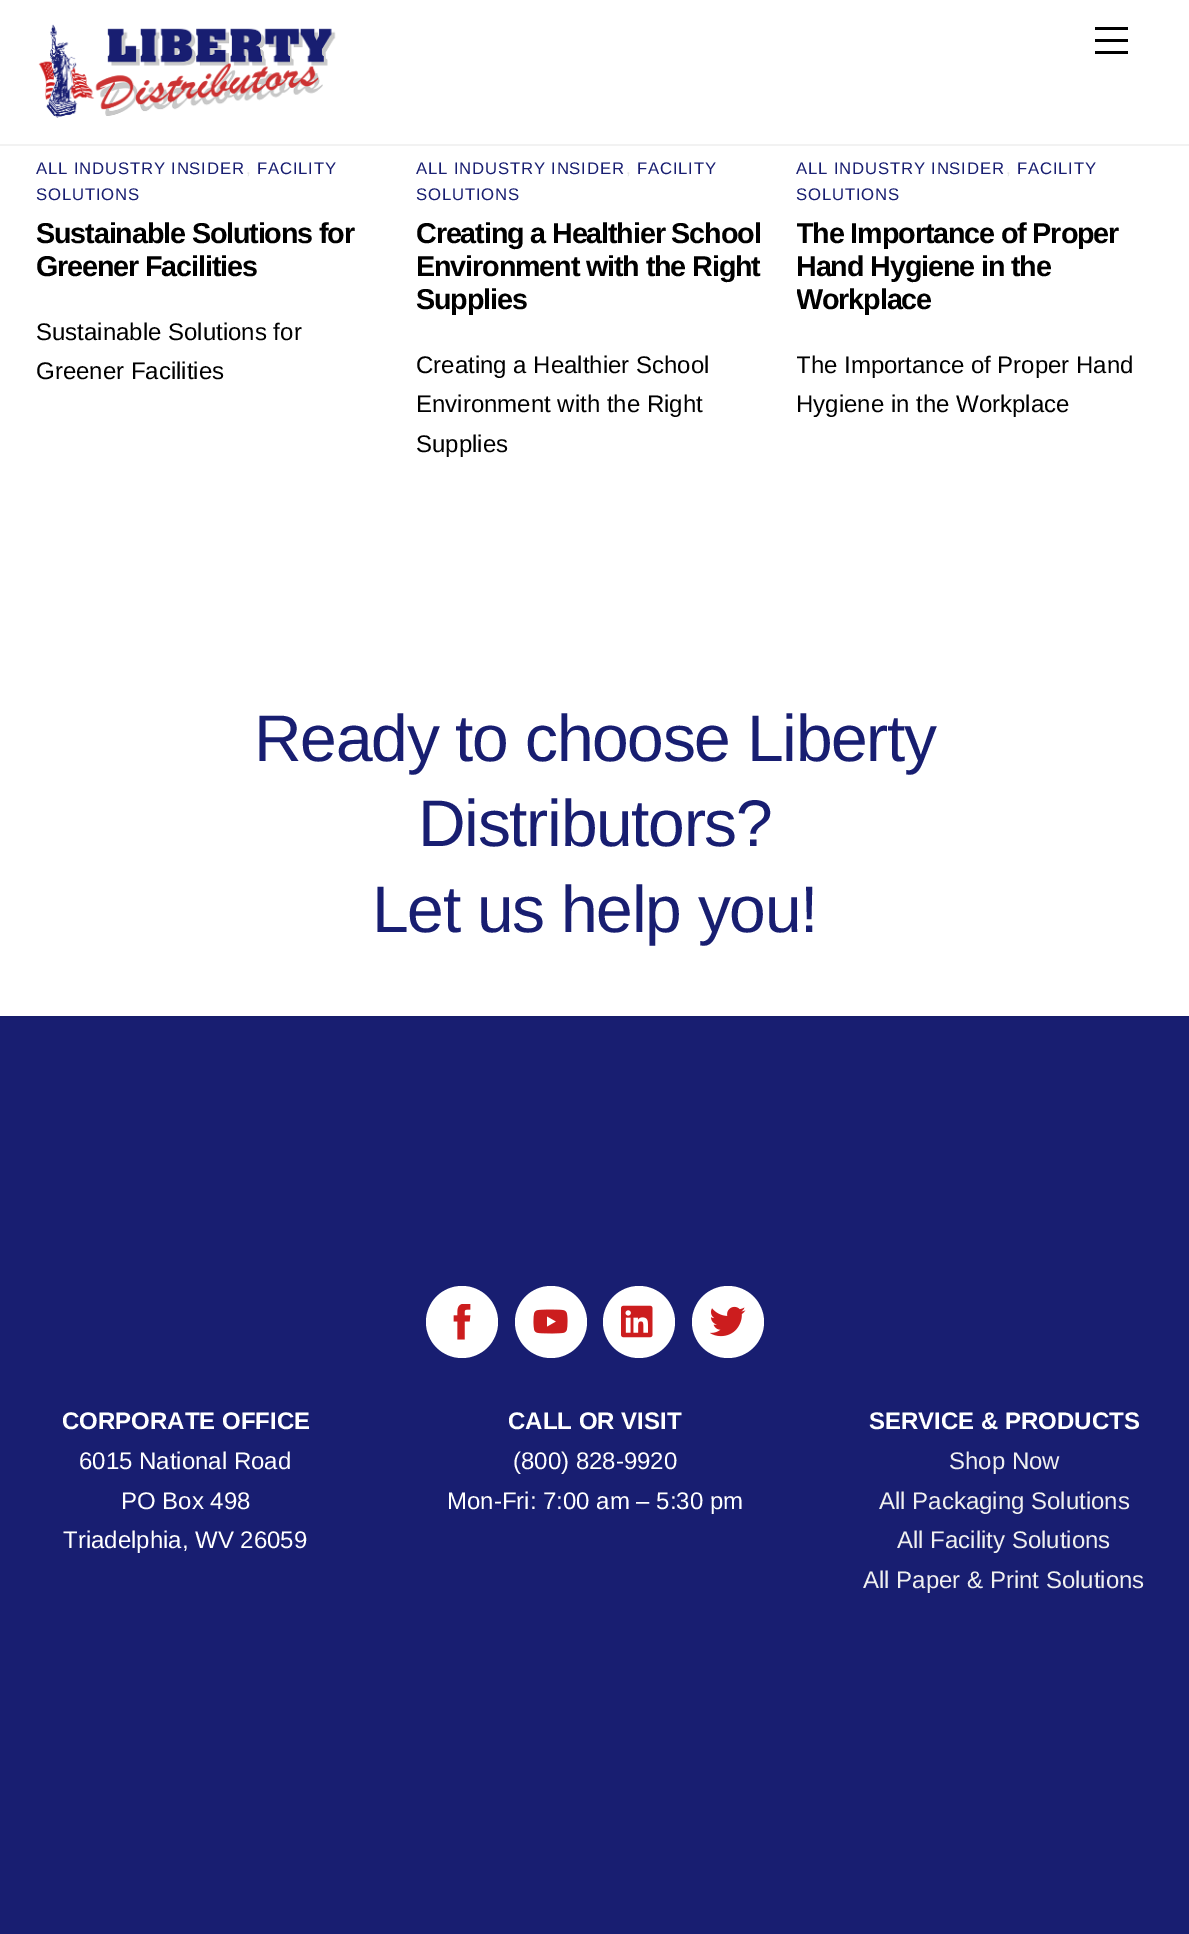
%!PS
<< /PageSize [1189 1934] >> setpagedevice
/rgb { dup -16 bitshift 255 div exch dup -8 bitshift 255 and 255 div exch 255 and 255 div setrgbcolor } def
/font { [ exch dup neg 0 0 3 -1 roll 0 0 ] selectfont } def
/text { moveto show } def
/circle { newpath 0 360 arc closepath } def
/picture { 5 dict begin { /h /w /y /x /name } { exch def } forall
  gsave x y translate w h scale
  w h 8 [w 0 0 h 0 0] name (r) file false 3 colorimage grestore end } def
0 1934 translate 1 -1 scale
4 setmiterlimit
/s1 { /LiberationSans-Regular 24 font 16#000000 rgb } def
/s2 { /LiberationSans-Bold 24 font 16#FFFFFF rgb } def
/s3 { /LiberationSans-Regular 24 font 16#FFFFFF rgb } def
/s4 { /LiberationSans-Regular 24 font 16#F0F0F0 rgb } def
16#FFFFFF rgb
0 0 1189 1934 rectfill
16#F2F2F2 rgb
0 144 1189 2 rectfill
(pic1.raw) 38 24 298 94 picture
16#000000 rgb
1095 51 33 3 rectfill
1095 27 33 3 rectfill
1095 39 33 3 rectfill
/LiberationSans-Regular 16.75 font
16#181E71 rgb
36 174 moveto 0.8 0 (ALL INDUSTRY INSIDER) ashow
16#E6E6E6 rgb
246 174 moveto 0.8 0 (,) ashow
16#181E71 rgb
257 174 moveto 0.8 0 (FACILITY) ashow
36 200 moveto 0.8 0 (SOLUTIONS) ashow
/LiberationSans-Bold 28.75 font
16#000000 rgb
36 243 moveto -1.15 0 (Sustainable Solutions for) ashow
36 276 moveto -1.15 0 (Greener Facilities) ashow
s1
(Sustainable Solutions for) 36 340 text
(Greener Facilities) 36 379 text
/LiberationSans-Regular 16.75 font
16#181E71 rgb
416 174 moveto 0.8 0 (ALL INDUSTRY INSIDER) ashow
16#E6E6E6 rgb
626 174 moveto 0.8 0 (,) ashow
16#181E71 rgb
637 174 moveto 0.8 0 (FACILITY) ashow
416 200 moveto 0.8 0 (SOLUTIONS) ashow
/LiberationSans-Bold 28.75 font
16#000000 rgb
416 243 moveto -1.15 0 (Creating a Healthier School) ashow
416 276 moveto -1.15 0 (Environment with the Right) ashow
416 309 moveto -1.15 0 (Supplies) ashow
s1
(Creating a Healthier School) 416 373 text
(Environment with the Right) 416 412 text
(Supplies) 416 452 text
/LiberationSans-Regular 16.75 font
16#181E71 rgb
796 174 moveto 0.8 0 (ALL INDUSTRY INSIDER) ashow
16#E6E6E6 rgb
1006 174 moveto 0.8 0 (,) ashow
16#181E71 rgb
1017 174 moveto 0.8 0 (FACILITY) ashow
796 200 moveto 0.8 0 (SOLUTIONS) ashow
gsave
797 156 357 300 rectclip
/LiberationSans-Bold 28.75 font
16#000000 rgb
796 243 moveto -1.15 0 (The Importance of Proper) ashow
grestore
/LiberationSans-Bold 28.75 font
16#000000 rgb
796 276 moveto -1.15 0 (Hand Hygiene in the) ashow
gsave
797 156 357 300 rectclip
796 309 moveto -1.15 0 (Workplace) ashow
s1
(The Importance of Proper Hand) 796 373 text
grestore
s1
(Hygiene in the Workplace) 796 412 text
/LiberationSans-Regular 66 font
16#181E71 rgb
254 761 moveto -1.3 0 (Ready to choose Liberty) ashow
418 846 moveto -1.3 0 (Distributors?) ashow
372 932 moveto -1.3 0 (Let us help you!) ashow
0 1018 1189 916 rectfill
16#171D6B rgb
0 1016 1189 2 rectfill
16#FFFFFF rgb
462 1322 36 circle fill
(pic2.raw) 453 1304 18 36 picture
551 1322 36 circle fill
(pic3.raw) 533 1309 35 25 picture
639 1322 36 circle fill
(pic4.raw) 621 1305 32 33 picture
728 1322 36 circle fill
(pic5.raw) 710 1306 36 31 picture
s2
(CORPORATE OFFICE) 62 1429 text
s3
(6015 National Road) 79 1469 text
(PO Box 498) 121 1509 text
(Triadelphia, WV 26059) 63 1548 text
s2
(CALL OR VISIT) 508 1429 text
s3
(\(800\) 828-9920) 513 1469 text
(Mon-Fri: 7:00 am – 5:30 pm) 447 1509 text
s2
(SERVICE & PRODUCTS) 869 1429 text
s4
(Shop Now) 949 1469 text
(All Packaging Solutions) 879 1509 text
(All Facility Solutions) 897 1548 text
(All Paper & Print Solutions) 863 1588 text
showpage
